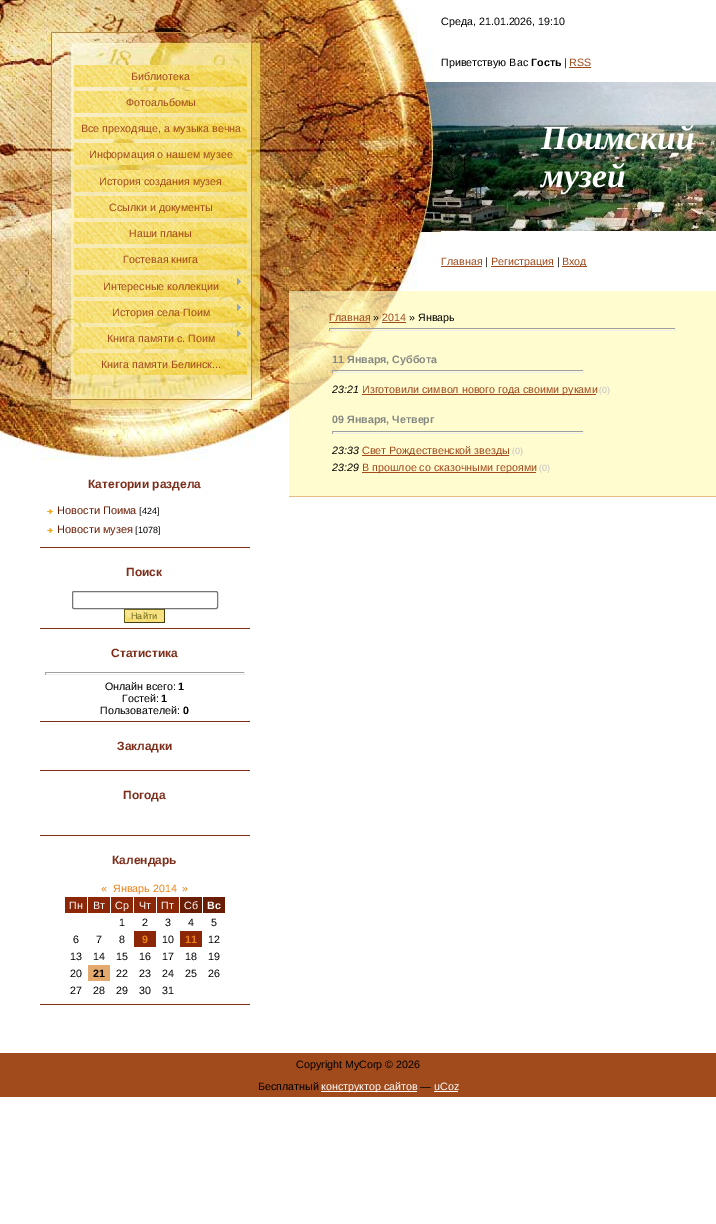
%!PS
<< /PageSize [716 1224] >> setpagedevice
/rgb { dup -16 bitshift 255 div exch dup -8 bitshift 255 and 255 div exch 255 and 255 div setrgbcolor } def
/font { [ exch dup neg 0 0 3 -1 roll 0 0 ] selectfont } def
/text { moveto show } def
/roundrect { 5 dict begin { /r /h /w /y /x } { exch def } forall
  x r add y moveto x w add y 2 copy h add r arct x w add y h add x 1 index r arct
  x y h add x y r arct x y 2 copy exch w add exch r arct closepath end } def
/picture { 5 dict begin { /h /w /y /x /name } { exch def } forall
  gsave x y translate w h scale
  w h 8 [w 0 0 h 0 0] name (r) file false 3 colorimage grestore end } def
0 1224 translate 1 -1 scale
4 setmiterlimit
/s1 { /LiberationSans-Regular 10.7 font 16#A14A1C rgb } def
/s2 { /LiberationSans-Bold 12 font 16#7D2D1A rgb } def
/s3 { /LiberationSans-Regular 11 font 16#6B1D05 rgb } def
/s4 { /LiberationSans-Regular 9 font 16#000000 rgb } def
/s5 { /LiberationSans-Regular 9 font 16#656219 rgb } def
/s6 { /LiberationSans-Regular 10.7 font 16#000000 rgb } def
/s7 { /LiberationSans-Bold 10.7 font 16#000000 rgb } def
/s8 { /LiberationSans-Regular 10.7 font 16#ED8114 rgb } def
/s9 { /LiberationSans-Regular 10.7 font 16#FFFFFF rgb } def
/s10 { /LiberationSans-Bold 10.7 font 16#FFFFFF rgb } def
/s11 { /LiberationSans-Bold 10.7 font 16#ED8114 rgb } def
/s12 { /LiberationSerif-BoldItalic 33.5 font 16#FFFFFF rgb } def
/s13 { /LiberationSans-Bold 10.7 font 16#868882 rgb } def
/s14 { /LiberationSans-Italic 10.7 font 16#000000 rgb } def
/s15 { /LiberationSans-Regular 9 font 16#C3C3C3 rgb } def
16#FFFFFF rgb
0 0 716 1224 rectfill
(pic1.raw) 0 0 289 42 picture
(pic2.raw) 0 42 70 356 picture
(pic3.raw) 70 42 181 356 picture
(pic4.raw) 74 65 173 22 picture
s1
(Библиотека) 131 80 text
(pic4.raw) 74 91 173 22 picture
(Фотоальбомы) 126 106 text
(pic4.raw) 74 117 173 22 picture
(Все преходяще, а музыка вечна) 81 132 text
(pic4.raw) 74 143 173 22 picture
(Информация о нашем музее) 89 158 text
(pic4.raw) 74 170 173 22 picture
(История создания музея) 99 185 text
(pic4.raw) 74 196 173 22 picture
(Ссылки и документы) 109 211 text
(pic4.raw) 74 222 173 22 picture
(Наши планы) 129 237 text
(pic4.raw) 74 248 173 22 picture
(Гостевая книга) 123 263 text
(pic4.raw) 74 275 173 22 picture
(Интересные коллекции) 103 290 text
(pic5.raw) 237 278 4 7 picture
(pic4.raw) 74 301 173 22 picture
(История села Поим) 112 316 text
(pic5.raw) 237 304 4 7 picture
(pic4.raw) 74 327 173 22 picture
(Книга памяти с. Поим) 107 342 text
(pic5.raw) 237 330 4 7 picture
(pic4.raw) 74 353 173 22 picture
(Книга памяти Белинск...) 101 368 text
(pic6.raw) 251 42 38 356 picture
(pic7.raw) 0 398 289 62 picture
16#7D2D1A rgb
40 547 210 1 rectfill
s2
(Категории раздела) 88 488 text
(pic8.raw) 47 509 6 5 picture
s3
(Новости Поима) 57 514 text
s4
([424]) 139 514 text
(pic8.raw) 47 528 6 5 picture
s3
(Новости музея) 57 533 text
s4
([1078]) 135 533 text
16#7D2D1A rgb
40 628 210 1 rectfill
s2
(Поиск) 126 576 text
16#767676 rgb
72.5 591.5 145 17 1.5 roundrect stroke
(pic9.raw) 125 610 39 12 picture
16#656219 rgb
124 609 41 1 rectfill
16#434111 rgb
164 609 1 14 rectfill
124 622 41 1 rectfill
16#656219 rgb
124 609 1 14 rectfill
s5
(Найти) 131 619 text
16#7D2D1A rgb
40 721 210 1 rectfill
s2
(Статистика) 111 657 text
16#9F9F9F rgb
45 672 200 1 rectfill
16#EEEEEE rgb
244 672 1 3 rectfill
45 674 200 1 rectfill
16#9F9F9F rgb
45 672 1 3 rectfill
s6
(Онлайн всего:) 105 690 text
s7
(1) 178 690 text
s6
(Гостей:) 122 702 text
s7
(1) 161 702 text
s6
(Пользователей:) 100 714 text
s7
(0) 183 714 text
16#7D2D1A rgb
40 770 210 1 rectfill
s2
(Закладки) 117 750 text
40 835 210 1 rectfill
(Погода) 123 799 text
40 1004 210 1 rectfill
(Календарь) 112 864 text
s8
(«) 101 892 text
(Январь 2014) 113 892 text
(») 182 892 text
16#8B2606 rgb
65 897 22 16 rectfill
s9
(Пн) 69 909 text
16#8B2606 rgb
88 897 22 16 rectfill
s9
(Вт) 93 909 text
16#8B2606 rgb
111 897 22 16 rectfill
s9
(Ср) 115 909 text
16#8B2606 rgb
134 897 22 16 rectfill
s9
(Чт) 139 909 text
16#8B2606 rgb
157 897 22 16 rectfill
s9
(Пт) 161 909 text
16#6A1D05 rgb
180 897 22 16 rectfill
s9
(Сб) 184 909 text
16#6A1D05 rgb
203 897 22 16 rectfill
s10
(Вс) 207 909 text
s6
(1) 119 926 text
(2) 142 926 text
(3) 165 926 text
(4) 188 926 text
(5) 211 926 text
(6) 73 943 text
(7) 96 943 text
(8) 119 943 text
16#8B2606 rgb
134 931 22 16 rectfill
s11
(9) 142 943 text
s6
(10) 162 943 text
16#8B2606 rgb
180 931 22 16 rectfill
s11
(11) 185 943 text
s6
(12) 208 943 text
(13) 70 960 text
(14) 93 960 text
(15) 116 960 text
(16) 139 960 text
(17) 162 960 text
(18) 185 960 text
(19) 208 960 text
(20) 70 977 text
16#E4AA6D rgb
88 965 22 16 rectfill
s7
(21) 93 977 text
s6
(22) 116 977 text
(23) 139 977 text
(24) 162 977 text
(25) 185 977 text
(26) 208 977 text
(27) 70 994 text
(28) 93 994 text
(29) 116 994 text
(30) 139 994 text
(31) 162 994 text
(pic10.raw) 289 0 152 291 picture
(Среда, 21.01.2026, 19:10) 441 25 text
(Приветствую Вас) 441 66 text
s7
(Гость) 531 66 text
s6
(|) 564 66 text
s1
(RSS) 569 66 text
569 67 22 1 rectfill
(pic11.raw) 441 82 275 149 picture
s12
(Поимский) 541 149 text
(музей) 541 187 text
s1
(Главная) 441 265 text
441 266 41 1 rectfill
s6
(|) 485 265 text
16#A14A1C rgb
491 266 63 1 rectfill
(Регистрация) 491 265 text
s6
(|) 557 265 text
16#A14A1C rgb
562 266 25 1 rectfill
(Вход) 562 265 text
16#E5BD85 rgb
289 496 427 1 rectfill
16#FFFCD0 rgb
289 291 427 205 rectfill
(pic12.raw) 289 291 112 120 picture
s1
(Главная) 329 321 text
329 322 41 1 rectfill
s6
(») 373 321 text
s1
(2014) 382 321 text
382 322 24 1 rectfill
s6
(» Январь) 409 321 text
16#9F9F9F rgb
329 328 347 1 rectfill
16#EEEEEE rgb
675 328 1 3 rectfill
329 330 347 1 rectfill
16#9F9F9F rgb
329 328 1 3 rectfill
s13
(11 Января, Суббота) 332 363 text
16#9F9F9F rgb
332 370 252 1 rectfill
16#EEEEEE rgb
583 370 1 3 rectfill
332 372 252 1 rectfill
16#9F9F9F rgb
332 370 1 3 rectfill
s14
(23:21) 332 393 text
16#A14A1C rgb
362 394 234 1 rectfill
s1
(Изготовили символ нового года своими руками) 362 393 text
s15
(\(0\)) 599 393 text
s13
(09 Января, Четверг) 332 423 text
16#9F9F9F rgb
332 431 252 1 rectfill
16#EEEEEE rgb
583 431 1 3 rectfill
332 433 252 1 rectfill
16#9F9F9F rgb
332 431 1 3 rectfill
s14
(23:33) 332 454 text
16#A14A1C rgb
362 455 147 1 rectfill
s1
(Свет Рождественской звезды) 362 454 text
s15
(\(0\)) 512 454 text
s14
(23:29) 332 471 text
16#A14A1C rgb
362 472 174 1 rectfill
s1
(В прошлое со сказочными героями) 362 471 text
s15
(\(0\)) 539 471 text
16#A14A1C rgb
0 1053 716 44 rectfill
s6
(Copyright MyCorp © 2026) 296 1068 text
(Бесплатный) 258 1090 text
16#FFFFFF rgb
321 1091 96 1 rectfill
(конструктор сайтов) 321 1090 text
s6
(—) 420 1090 text
s9
(uCoz) 434 1090 text
434 1091 24 1 rectfill
showpage
